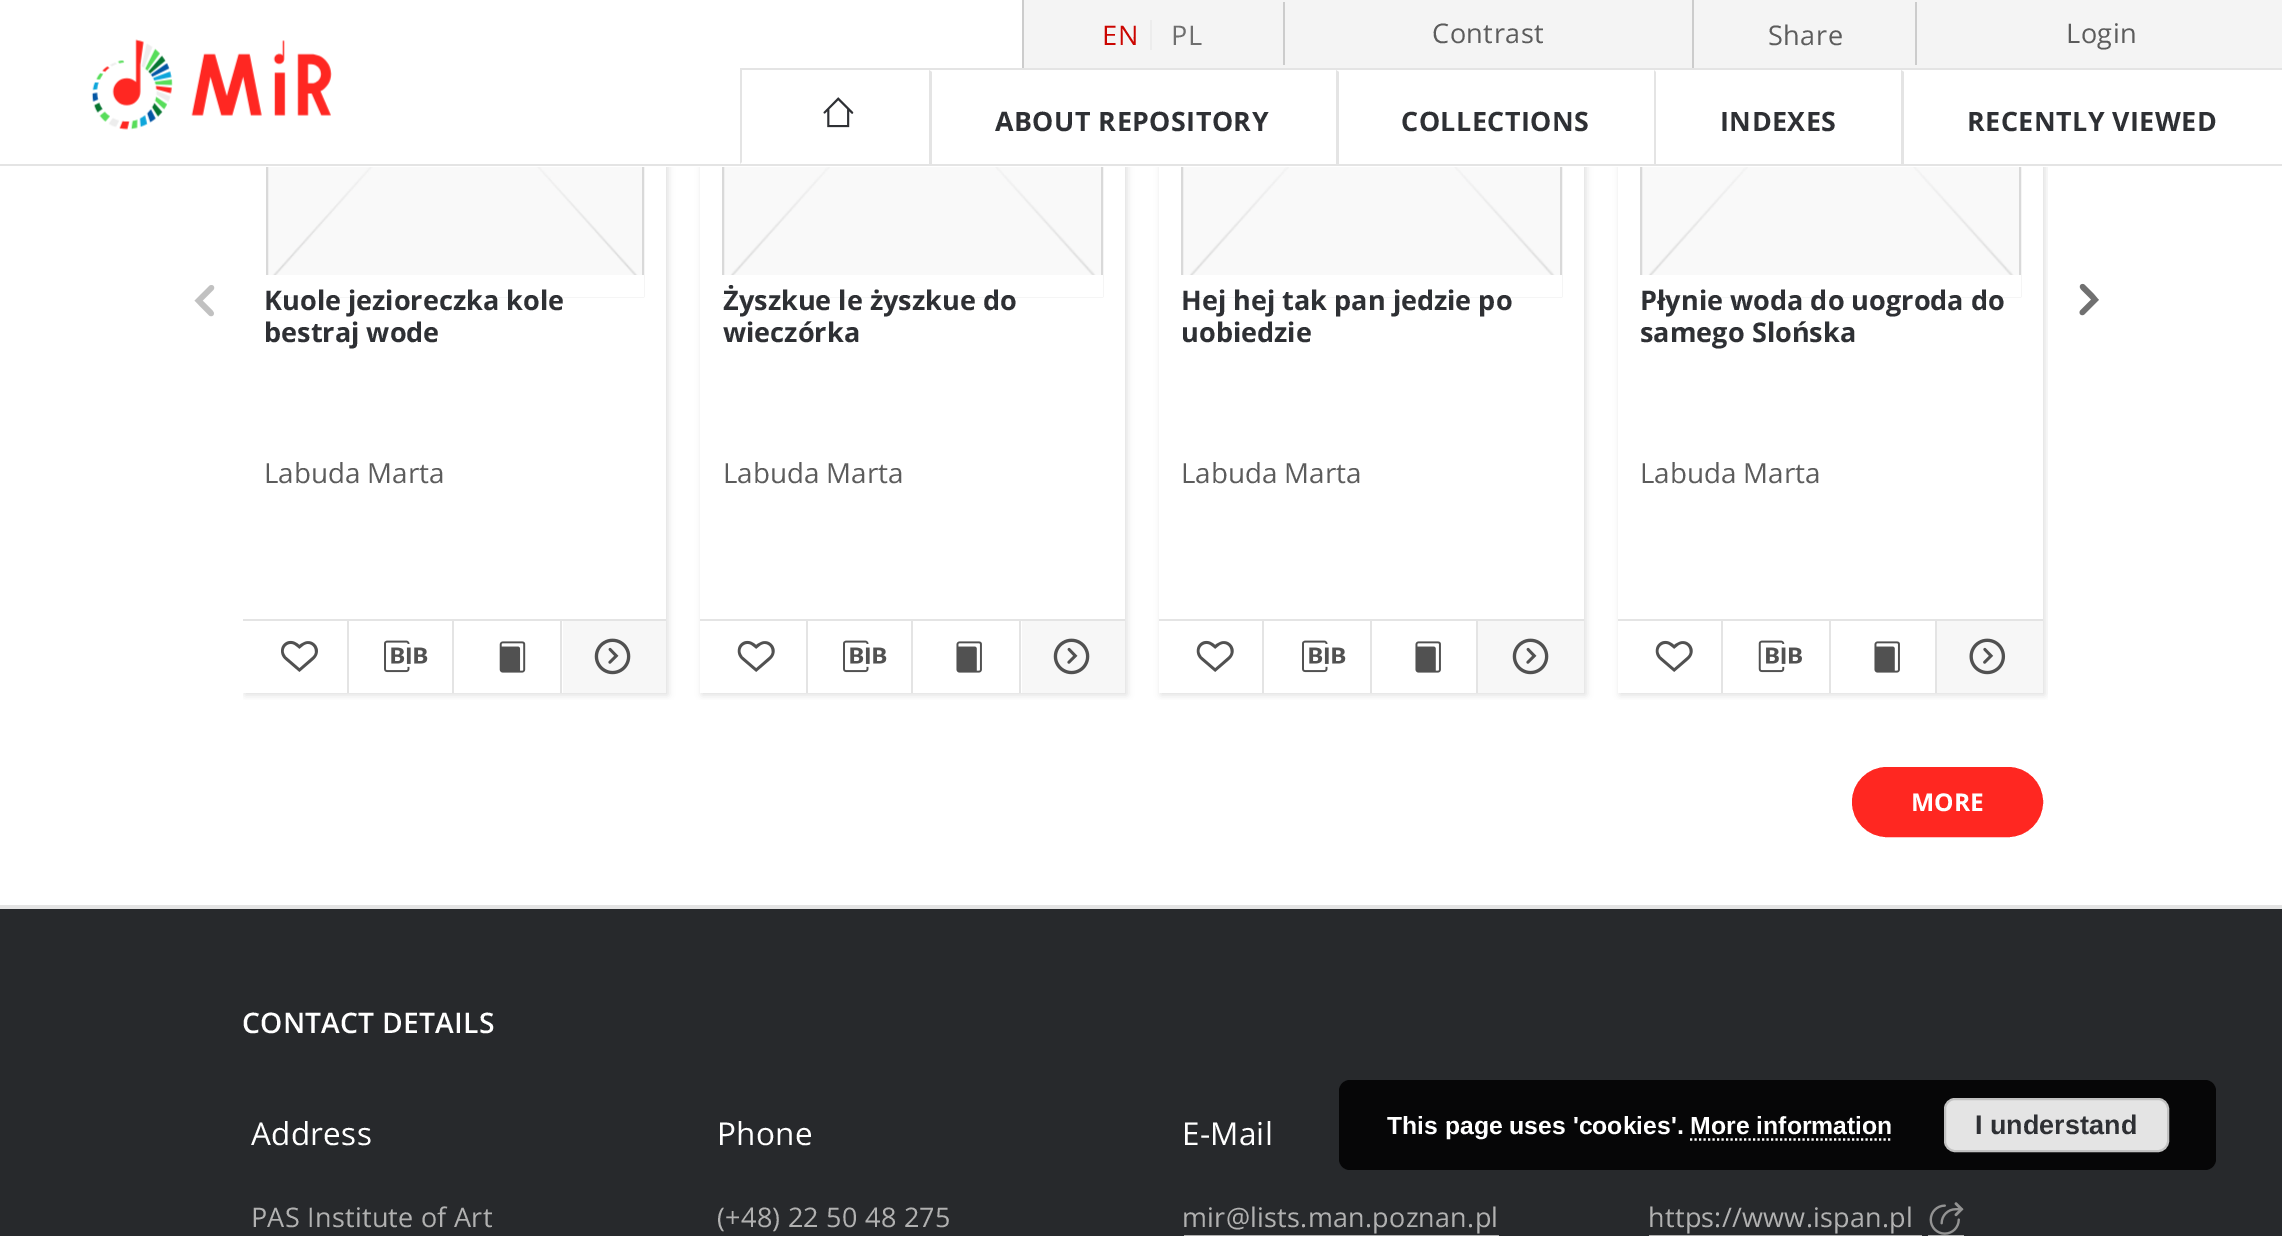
%!PS
<< /PageSize [2282 1236] /PageUsesTransparency true >> setpagedevice
/rgb { dup -16 bitshift 255 div exch dup -8 bitshift 255 and 255 div exch 255 and 255 div setrgbcolor } def
/font { [ exch dup neg 0 0 3 -1 roll 0 0 ] selectfont } def
/text { moveto show } def
/alpha { dup .setfillconstantalpha .setstrokeconstantalpha } def
/roundrect { 5 dict begin { /r /h /w /y /x } { exch def } forall
  x r add y moveto x w add y 2 copy h add r arct x w add y h add x 1 index r arct
  x y h add x y r arct x y 2 copy exch w add exch r arct closepath end } def
/shadow { 12 dict begin { /a /b /q /h /w /y /x } { exch def } forall gsave /was 0 def
  9 -2 -9 { dup b mul 4 div /e exch def 1 sub .425 mul 2.718 exch exp 1 add a .99 .min exch div /now exch def
    1 1 now sub 1 was sub div sub alpha /was now def
    w h .min e 2 mul add 0 gt { x e sub y e sub w e 2 mul add h e 2 mul add
      q e add b .6 mul add w h .min 2 div e add .min 0 .max roundrect fill } if } for grestore end } def
/picture { 5 dict begin { /h /w /y /x /name } { exch def } forall
  gsave x y translate w h scale
  w h 8 [w 0 0 h 0 0] name (r) file false 3 colorimage grestore end } def
0 .pushpdf14devicefilter
0 1236 translate 1 -1 scale
4 setmiterlimit
/s1 { /OpenSans-Bold 27.1 font 16#2E3034 rgb } def
/s2 { /OpenSans-Regular 27.75 font 16#5C5C5C rgb } def
/s3 { /OpenSans-Bold 24.5 font 16#FFFFFF rgb } def
/s4 { /LiberationSans-Bold 24.75 font 16#FFFFFF rgb } def
/s5 { /LiberationSans-Bold 27 font 16#2E3034 rgb } def
16#FFFFFF rgb
0 0 2282 1236 rectfill
gsave
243 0 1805 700 rectclip
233 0 moveto 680 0 lineto 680 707 lineto 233 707 lineto closepath 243 -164 moveto 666 -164 lineto 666 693 lineto 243 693 lineto closepath eoclip newpath
16#DEDEDE rgb
245 -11 423 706 0 3.5 1 shadow
grestore
16#F9F9F9 rgb
268 167 374 108 rectfill
16#D9D9D9 rgb
2 setlinewidth
267 -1 376 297 rectstroke
gsave
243 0 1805 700 rectclip
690 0 moveto 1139 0 lineto 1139 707 lineto 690 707 lineto closepath 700 -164 moveto 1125 -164 lineto 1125 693 lineto 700 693 lineto closepath eoclip newpath
16#DEDEDE rgb
702 -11 425 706 0 3.5 1 shadow
grestore
16#F9F9F9 rgb
724 167 377 108 rectfill
16#D9D9D9 rgb
723 -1 379 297 rectstroke
gsave
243 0 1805 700 rectclip
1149 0 moveto 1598 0 lineto 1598 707 lineto 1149 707 lineto closepath 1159 -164 moveto 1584 -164 lineto 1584 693 lineto 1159 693 lineto closepath eoclip newpath
16#DEDEDE rgb
1161 -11 425 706 0 3.5 1 shadow
grestore
16#F9F9F9 rgb
1183 167 377 108 rectfill
16#D9D9D9 rgb
1182 -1 379 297 rectstroke
gsave
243 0 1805 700 rectclip
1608 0 moveto 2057 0 lineto 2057 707 lineto 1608 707 lineto closepath 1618 -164 moveto 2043 -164 lineto 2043 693 lineto 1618 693 lineto closepath eoclip newpath
16#DEDEDE rgb
1620 -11 425 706 0 3.5 1 shadow
grestore
16#F9F9F9 rgb
1642 167 377 108 rectfill
16#D9D9D9 rgb
1641 -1 379 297 rectstroke
16#FFFFFF rgb
266 0 1782 167 rectfill
16#E4E4E4 rgb
0 164 2282 2 rectfill
16#F4F4F4 rgb
1024 0 1258 68 rectfill
16#CCCCCC rgb
1022 0 2 68 rectfill
1283 2 2 63 rectfill
16#ECECEC rgb
1150 20 2 30 rectfill
/OpenSans-Regular 27.1 font
16#CB0500 rgb
1102 45 moveto 0.5 0 (EN) ashow
16#6F6F6F rgb
1171 45 moveto 0.5 0 (PL) ashow
16#CCCCCC rgb
1692 0 2 68 rectfill
16#5C5C5C rgb
1432 43 moveto 0.5 0 (Contrast) ashow
16#CCCCCC rgb
1915 2 2 63 rectfill
16#5C5C5C rgb
1768 45 moveto 0.5 0 (Share) ashow
2066 43 moveto 0.5 0 (Login) ashow
(pic1.raw) 91 39 241 91 picture
16#E4E4E4 rgb
740 68 1542 2 rectfill
740 164 moveto 740 68 lineto 742 70 lineto 742 162 lineto closepath fill
(pic2.raw) 823 97 31 31 picture
929 166 moveto 929 70 lineto 932 72 lineto 932 164 lineto closepath fill
/OpenSans-Bold 26.75 font
16#2E3034 rgb
995 131 moveto 0.5 0 (ABOUT REPOSITORY) ashow
16#E4E4E4 rgb
1336 166 moveto 1336 70 lineto 1339 72 lineto 1339 164 lineto closepath fill
16#2E3034 rgb
1401 131 moveto 0.5 0 (COLLECTIONS) ashow
16#E4E4E4 rgb
1654 166 moveto 1654 70 lineto 1656 72 lineto 1656 164 lineto closepath fill
16#2E3034 rgb
1720 131 moveto 0.5 0 (INDEXES) ashow
16#E4E4E4 rgb
1901 166 moveto 1901 70 lineto 1904 72 lineto 1904 164 lineto closepath fill
16#2E3034 rgb
1967 131 moveto 0.5 0 (RECENTLY VIEWED) ashow
16#E4E4E4 rgb
0 905 2282 4 rectfill
(pic3.raw) 194 285 21 32 picture
(pic4.raw) 2079 283 20 33 picture
(pic5.raw) 272 167 366 108 picture
16#FFFFFF rgb
266 275 378 22 rectfill
s1
(Kuole jezioreczka kole) 264 310 text
(bestraj wode) 264 342 text
s2
(Labuda Marta) 264 483 text
16#E4E4E4 rgb
243 619 423 2 rectfill
347 621 2 72 rectfill
(pic6.raw) 281 640 37 32 picture
452 621 2 72 rectfill
(pic7.raw) 384 640 44 33 picture
560 621 2 72 rectfill
(pic8.raw) 499 641 27 32 picture
16#F7F7F7 rgb
563 621 103 72 rectfill
(pic9.raw) 594 638 37 37 picture
(pic10.raw) 730 167 366 108 picture
16#FFFFFF rgb
722 275 381 22 rectfill
s1
(Żyszkue le żyszkue do) 723 310 text
(wieczórka) 723 342 text
s2
(Labuda Marta) 723 483 text
16#E4E4E4 rgb
700 619 425 2 rectfill
806 621 2 72 rectfill
(pic11.raw) 737 640 38 32 picture
911 621 2 72 rectfill
(pic7.raw) 843 640 44 33 picture
1019 621 2 72 rectfill
(pic12.raw) 956 641 26 32 picture
16#F7F7F7 rgb
1022 621 103 72 rectfill
(pic9.raw) 1053 638 37 37 picture
(pic10.raw) 1189 167 366 108 picture
16#FFFFFF rgb
1181 275 381 22 rectfill
s1
(Hej hej tak pan jedzie po) 1181 310 text
(uobiedzie) 1181 342 text
s2
(Labuda Marta) 1181 483 text
16#E4E4E4 rgb
1159 619 425 2 rectfill
1262 621 2 72 rectfill
(pic11.raw) 1196 640 38 32 picture
1370 621 2 72 rectfill
(pic7.raw) 1302 640 44 33 picture
1476 621 2 72 rectfill
(pic12.raw) 1415 641 26 32 picture
16#F7F7F7 rgb
1478 621 106 72 rectfill
(pic9.raw) 1512 638 37 37 picture
(pic10.raw) 1648 167 366 108 picture
16#FFFFFF rgb
1640 275 381 22 rectfill
s1
(Płynie woda do uogroda do) 1640 310 text
(samego Slońska) 1640 342 text
s2
(Labuda Marta) 1640 483 text
16#E4E4E4 rgb
1618 619 425 2 rectfill
1721 621 2 72 rectfill
(pic11.raw) 1655 640 38 32 picture
1829 621 2 72 rectfill
(pic13.raw) 1758 640 44 33 picture
1935 621 2 72 rectfill
(pic12.raw) 1874 641 26 32 picture
16#F7F7F7 rgb
1937 621 106 72 rectfill
(pic14.raw) 1969 638 37 37 picture
16#FF2721 rgb
1853 768 189 68 34 roundrect gsave fill grestore
stroke
s3
(MORE) 1911 811 text
16#27292C rgb
0 909 2282 327 rectfill
/OpenSans-SemiBold 28.25 font
16#FFFFFF rgb
242 1033 moveto 0.25 0 (CONTACT DETAILS) ashow
/OpenSans-Regular 31.5 font
251 1145 moveto 0.25 0 (Address) ashow
/OpenSans-Regular 27 font
16#B1B1B1 rgb
251 1227 moveto 0.25 0 (PAS Institute of Art) ashow
/OpenSans-Regular 31.5 font
16#FFFFFF rgb
717 1145 moveto 0.25 0 (Phone) ashow
/OpenSans-Regular 27 font
16#B1B1B1 rgb
717 1227 moveto 0.25 0 (\(+48\) 22 50 48 275) ashow
/OpenSans-Regular 31.5 font
16#FFFFFF rgb
1182 1145 moveto 0.25 0 (E-Mail) ashow
/OpenSans-Regular 27 font
16#B1B1B1 rgb
1182 1227 moveto 0.25 0 (mir@lists.man.poznan.pl) ashow
1184 1235 315 1 rectfill
1648 1227 moveto 0.25 0 (https://www.ispan.pl) ashow
1649 1235 273 1 rectfill
1928 1235 36 1 rectfill
(pic15.raw) 1929 1202 35 33 picture
0.85 alpha
16#000000 rgb
1339 1080 877 90 11 roundrect fill
1 alpha
s4
(This page uses 'cookies'. More information) 1387 1134 text
16#E4E4E4 rgb
1945 1099 223 52 10 roundrect gsave fill grestore
16#C1C1C1 rgb
stroke
s5
(I understand) 1975 1134 text
16#FFFFFF rgb
2.2 setlinewidth
[2.25 2.25] 0 setdash
1690 1139.5 moveto 1892 1139.5 lineto stroke
.poppdf14devicefilter showpage
